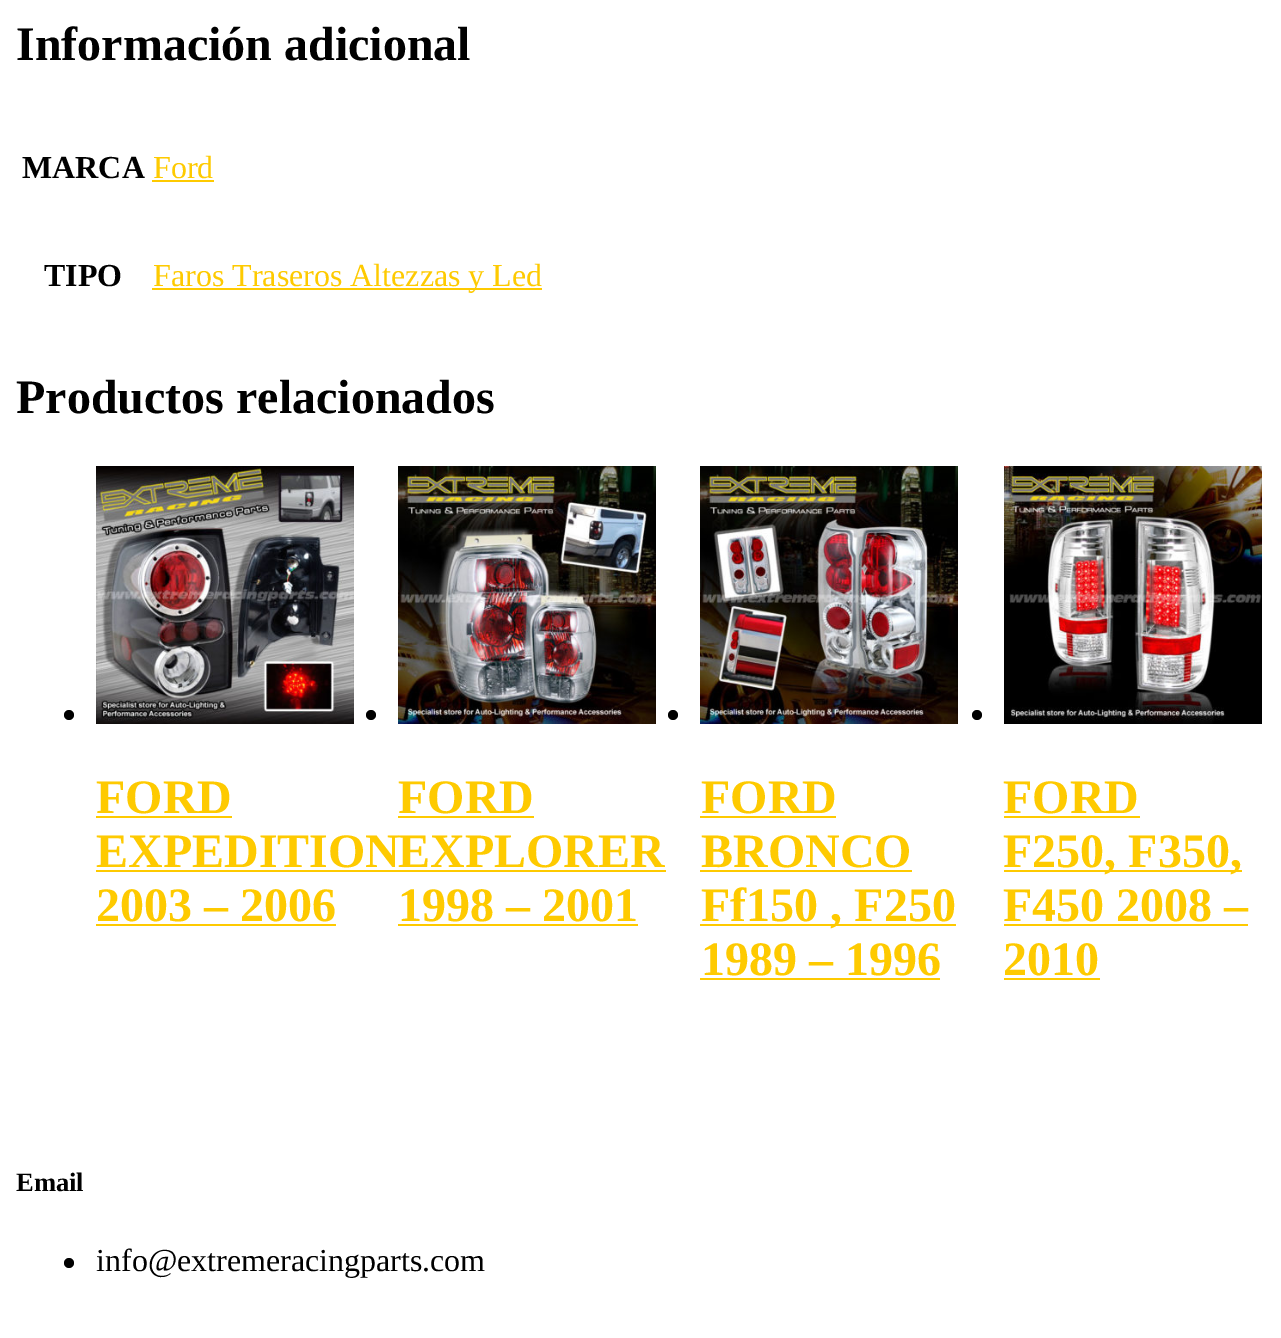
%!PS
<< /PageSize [1281 1338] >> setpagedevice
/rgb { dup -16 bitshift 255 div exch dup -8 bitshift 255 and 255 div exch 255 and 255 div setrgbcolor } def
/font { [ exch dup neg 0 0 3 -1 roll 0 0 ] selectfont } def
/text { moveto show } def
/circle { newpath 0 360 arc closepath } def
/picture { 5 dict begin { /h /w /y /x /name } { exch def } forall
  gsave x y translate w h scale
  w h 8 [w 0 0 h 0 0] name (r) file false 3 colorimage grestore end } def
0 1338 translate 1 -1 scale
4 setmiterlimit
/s1 { /LiberationSerif-Bold 48 font 16#000000 rgb } def
/s2 { /LiberationSerif-Bold 32 font 16#000000 rgb } def
/s3 { /LiberationSerif-Regular 32 font 16#FECA00 rgb } def
/s4 { /LiberationSerif-Bold 48 font 16#FECA00 rgb } def
/s5 { /LiberationSerif-Bold 26.5 font 16#000000 rgb } def
/s6 { /LiberationSerif-Regular 32 font 16#000000 rgb } def
16#FFFFFF rgb
0 0 1281 1338 rectfill
s1
(Información adicional) 16 60 text
s2
(MARCA) 22 178 text
s3
(Ford) 153 178 text
152 180 62 2 rectfill
s2
(TIPO) 44 286 text
16#FECA00 rgb
152 288 390 2 rectfill
s3
(Faros Traseros Altezzas y Led) 153 286 text
s1
(Productos relacionados) 16 413 text
69 715 5 circle fill
(pic1.raw) 96 466 258 258 picture
s4
(FORD) 96 813 text
96 816 136 2 rectfill
(EXPEDITION) 96 867 text
96 870 570 2 rectfill
(2003 – 2006) 96 921 text
96 924 240 2 rectfill
16#000000 rgb
371 715 5 circle fill
(pic2.raw) 398 466 258 258 picture
s4
(FORD) 398 813 text
398 816 136 2 rectfill
(EXPLORER) 398 867 text
(1998 – 2001) 398 921 text
398 924 240 2 rectfill
16#000000 rgb
673 715 5 circle fill
(pic3.raw) 700 466 258 258 picture
s4
(FORD) 701 813 text
700 816 136 2 rectfill
(BRONCO) 701 867 text
700 870 212 2 rectfill
700 924 256 2 rectfill
(Ff150 , F250) 701 921 text
(1989 – 1996) 701 975 text
700 978 240 2 rectfill
16#000000 rgb
977 715 5 circle fill
(pic4.raw) 1004 466 258 258 picture
s4
(FORD) 1003 813 text
1004 816 136 2 rectfill
1004 870 238 2 rectfill
(F250, F350,) 1003 867 text
(F450 2008 –) 1003 921 text
1004 924 244 2 rectfill
(2010) 1003 975 text
1004 978 96 2 rectfill
s5
(Email) 16 1191 text
69 1263 5 circle fill
s6
(info@extremeracingparts.com) 96 1271 text
showpage
